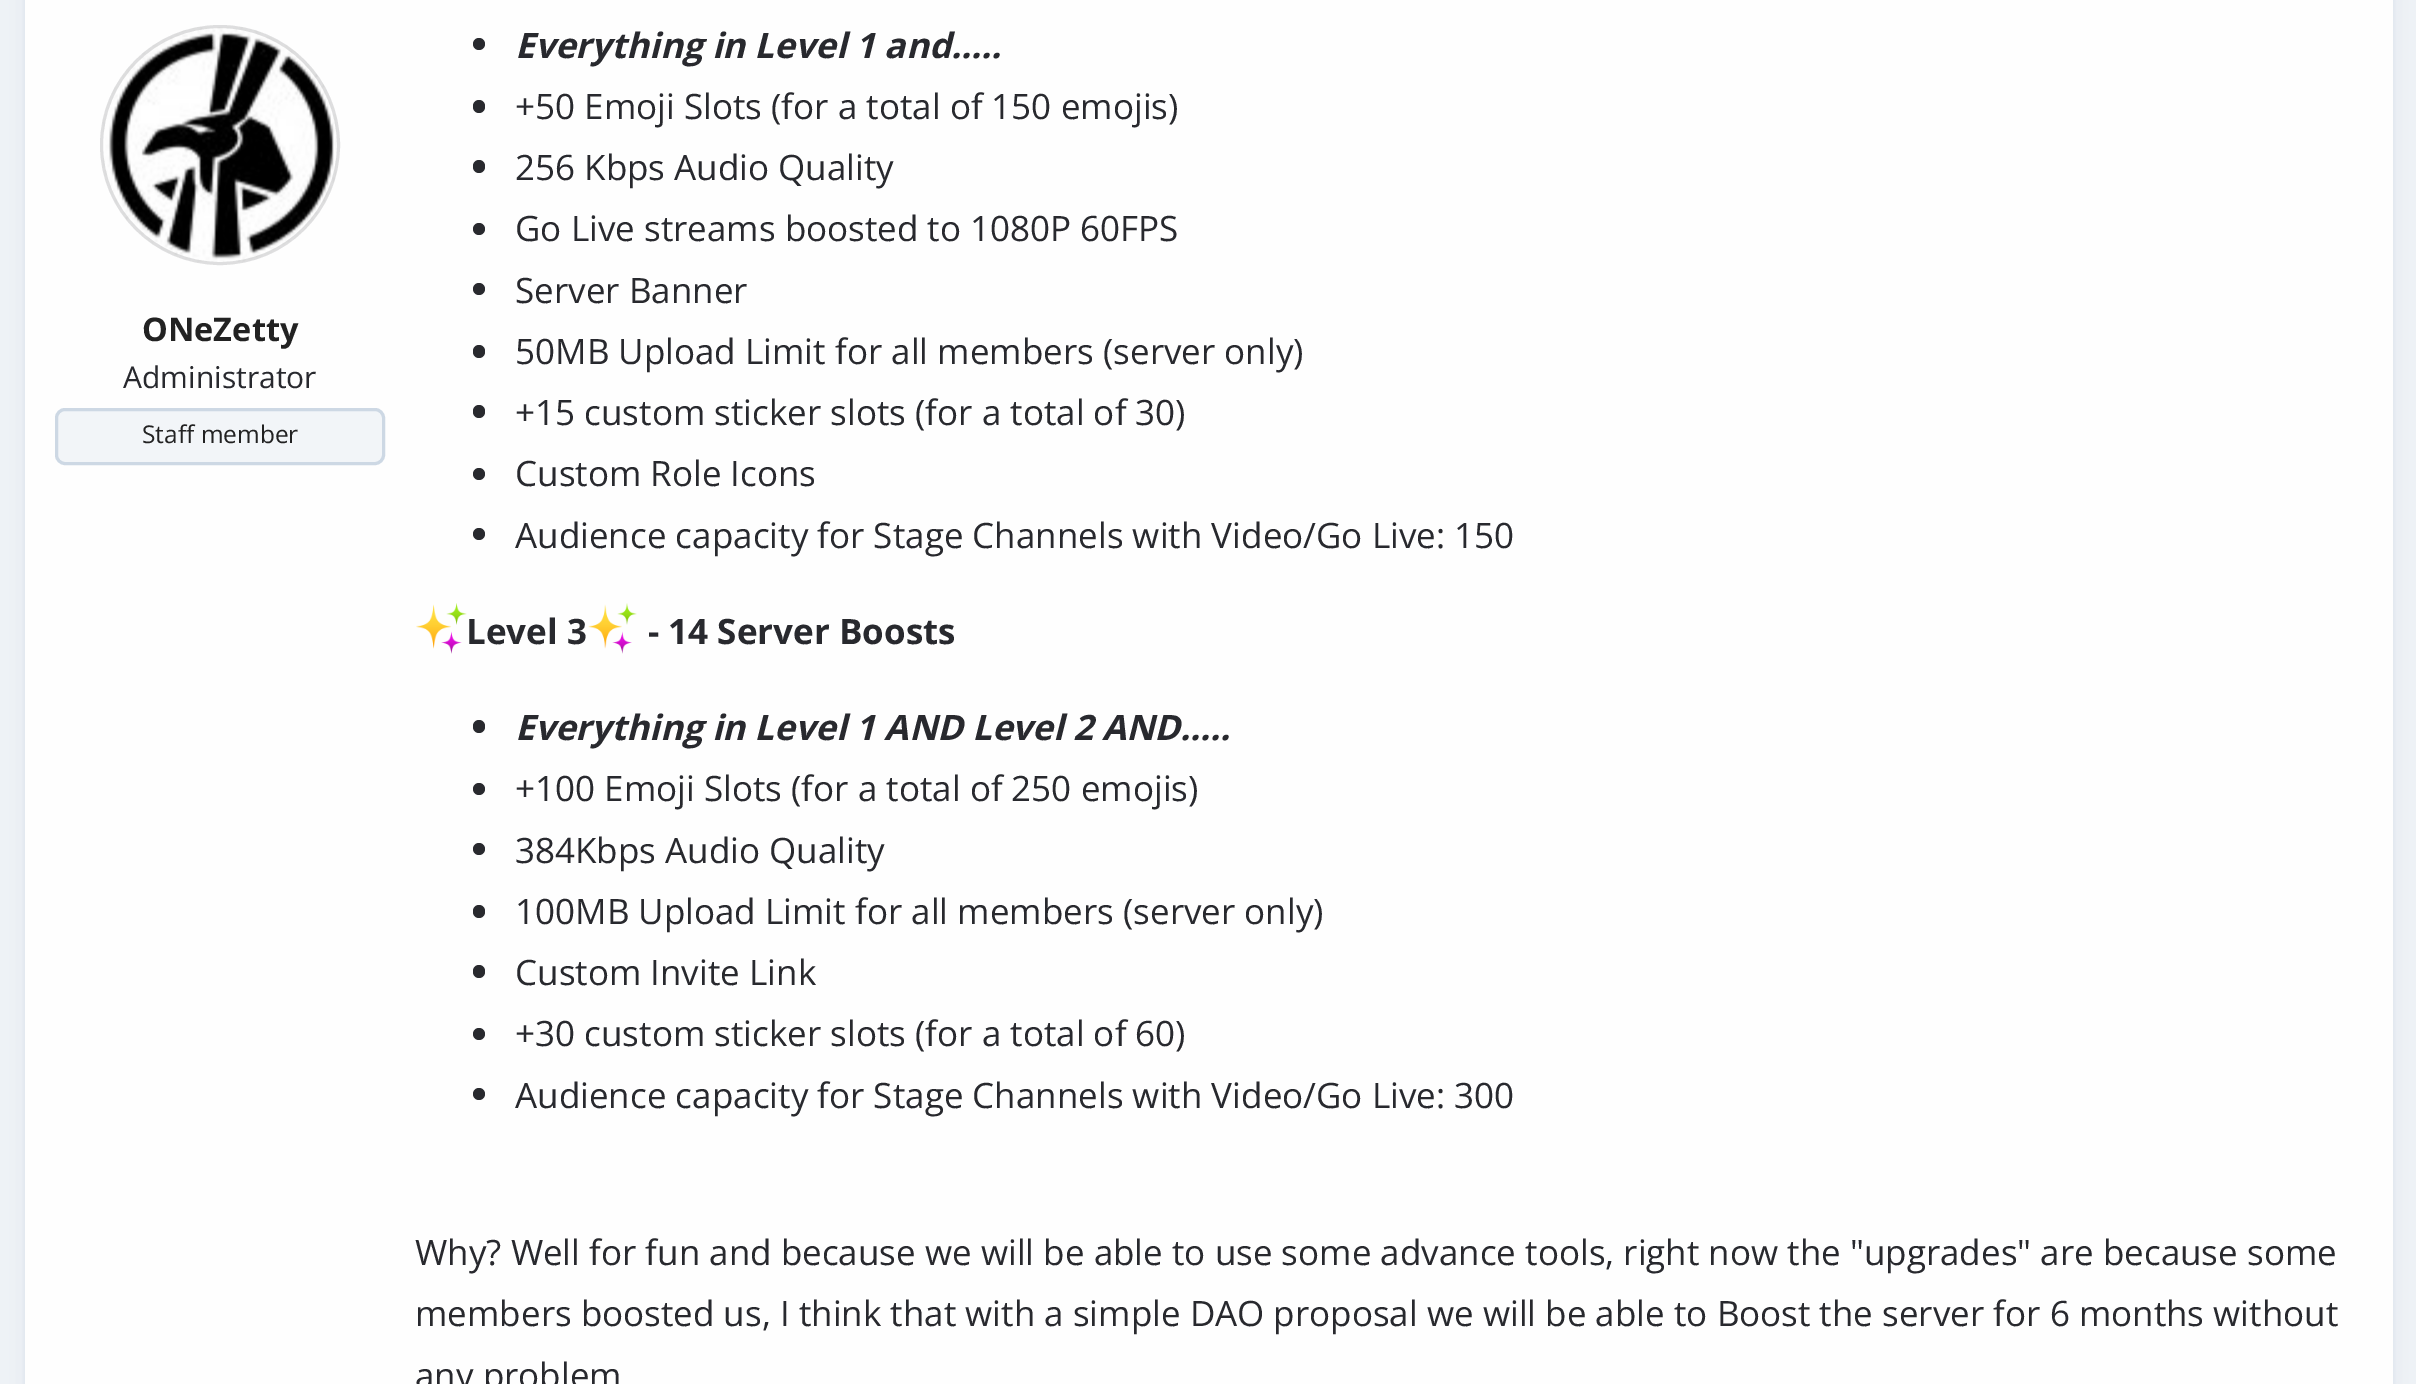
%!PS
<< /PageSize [2416 1384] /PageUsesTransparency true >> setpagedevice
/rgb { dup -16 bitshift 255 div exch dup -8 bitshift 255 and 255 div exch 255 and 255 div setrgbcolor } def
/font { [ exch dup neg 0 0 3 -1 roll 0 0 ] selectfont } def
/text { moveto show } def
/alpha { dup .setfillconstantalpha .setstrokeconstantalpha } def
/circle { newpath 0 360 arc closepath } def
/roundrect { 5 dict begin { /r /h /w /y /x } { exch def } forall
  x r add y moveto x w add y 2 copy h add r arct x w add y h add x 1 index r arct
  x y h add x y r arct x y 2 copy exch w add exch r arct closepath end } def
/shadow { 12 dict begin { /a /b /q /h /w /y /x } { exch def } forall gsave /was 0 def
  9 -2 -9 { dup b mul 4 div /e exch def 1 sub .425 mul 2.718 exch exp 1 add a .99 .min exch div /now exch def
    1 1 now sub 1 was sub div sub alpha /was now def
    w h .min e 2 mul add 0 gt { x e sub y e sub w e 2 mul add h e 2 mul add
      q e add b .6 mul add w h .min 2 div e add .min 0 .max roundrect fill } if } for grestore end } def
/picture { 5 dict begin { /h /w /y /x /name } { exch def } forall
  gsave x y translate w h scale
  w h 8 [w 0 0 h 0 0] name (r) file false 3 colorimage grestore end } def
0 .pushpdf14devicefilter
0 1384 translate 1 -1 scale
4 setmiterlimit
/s1 { /OpenSans-Bold 32.5 font 16#222222 rgb } def
/s2 { /OpenSans-Regular 30 font 16#28292E rgb } def
/s3 { /OpenSans-Regular 24.5 font 16#222222 rgb } def
/s4 { /OpenSans-BoldItalic 35 font 16#28292E rgb } def
/s5 { /OpenSans-Regular 35 font 16#28292E rgb } def
/s6 { /OpenSans-Bold 35 font 16#28292E rgb } def
16#EEF2F6 rgb
0 0 2416 1384 rectfill
16#7897BA rgb
25 -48 2368 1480 10 12.5 0.12 shadow
25 -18 2368 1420 10 2.5 0.12 shadow
16#FEFEFE rgb
25 0 2368 1384 rectfill
(pic1.raw) 103 27 234 235 picture
0.15 alpha
16#28292E rgb
3 setlinewidth
220 145 118.5 circle stroke
1 alpha
s1
(ONeZetty) 142 341 text
s2
(Administrator) 123 388 text
16#F2F5F8 rgb
56.5 409.5 327 54 8.5 roundrect gsave fill grestore
16#CDD8E4 rgb
stroke
s3
(Staff member) 142 443 text
16#28292E rgb
479 44 6 circle fill
s4
(Everything in Level 1 and…..) 515 58 text
473 100 12 13 6 roundrect fill
s5
(+50 Emoji Slots \(for a total of 150 emojis\)) 515 119 text
473 160 12 13 6 roundrect fill
(256 Kbps Audio Quality) 515 180 text
479 229 6 circle fill
(Go Live streams boosted to 1080P 60FPS) 515 241 text
479 289 6 circle fill
(Server Banner) 515 303 text
473 345 12 13 6 roundrect fill
(50MB Upload Limit for all members \(server only\)) 515 364 text
473 405 12 13 6 roundrect fill
(+15 custom sticker slots \(for a total of 30\)) 515 425 text
479 474 6 circle fill
(Custom Role Icons) 515 486 text
479 534 6 circle fill
(Audience capacity for Stage Channels with Video/Go Live: 150) 515 548 text
(pic2.raw) 416 603 51 51 picture
s6
(Level 3) 466 644 text
(pic3.raw) 588 603 49 51 picture
(- 14 Server Boosts) 648 644 text
473 720 12 13 6 roundrect fill
s4
(Everything in Level 1 AND Level 2 AND…..) 515 740 text
479 789 6 circle fill
s5
(+100 Emoji Slots \(for a total of 250 emojis\)) 515 801 text
479 849 6 circle fill
(384Kbps Audio Quality) 515 863 text
473 905 12 13 6 roundrect fill
(100MB Upload Limit for all members \(server only\)) 515 924 text
473 965 12 13 6 roundrect fill
(Custom Invite Link) 515 985 text
479 1034 6 circle fill
(+30 custom sticker slots \(for a total of 60\)) 515 1046 text
479 1094 6 circle fill
(Audience capacity for Stage Channels with Video/Go Live: 300) 515 1108 text
(Why? Well for fun and because we will be able to use some advance tools, right now the "upgrades" are because some) 415 1265 text
(members boosted us, I think that with a simple DAO proposal we will be able to Boost the server for 6 months without) 415 1326 text
(any problem) 415 1388 text
.poppdf14devicefilter showpage
